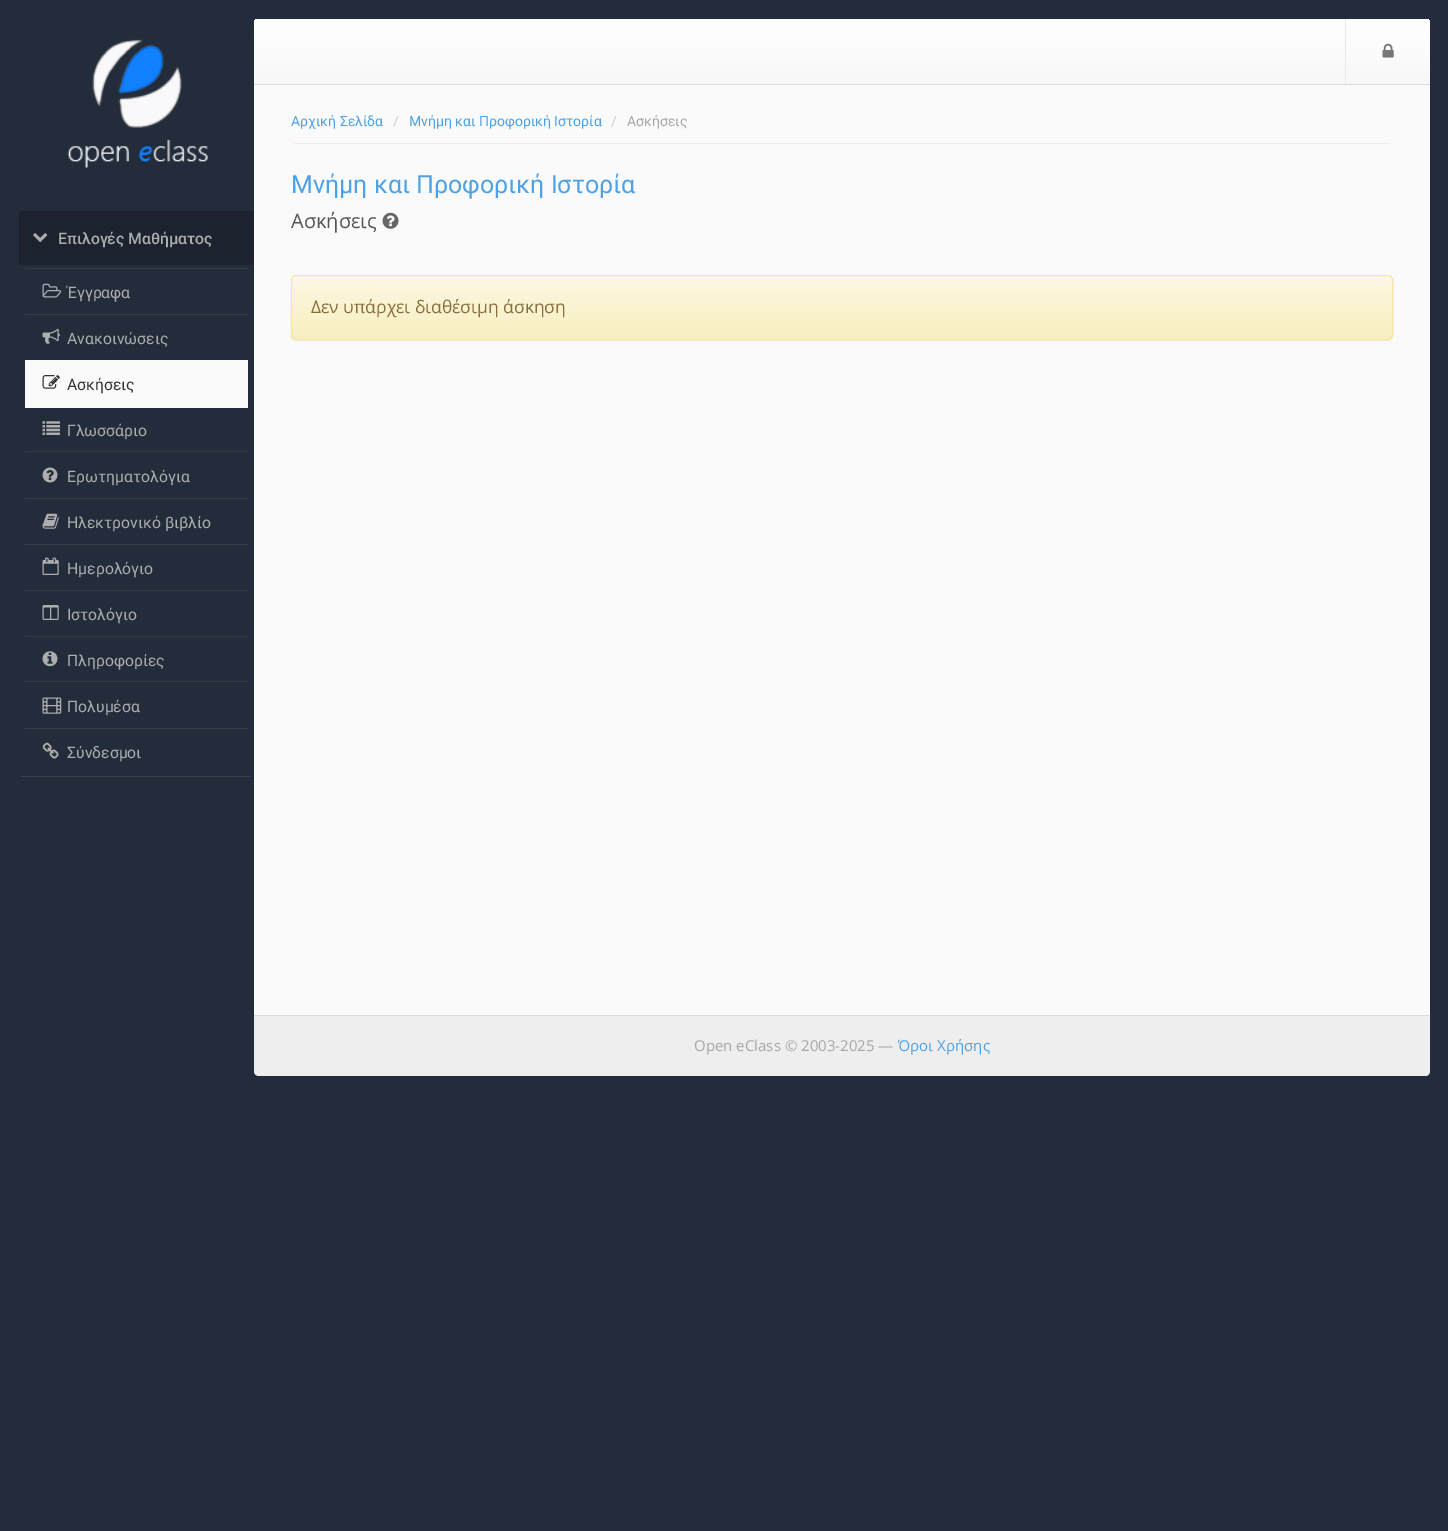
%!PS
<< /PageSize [1448 1531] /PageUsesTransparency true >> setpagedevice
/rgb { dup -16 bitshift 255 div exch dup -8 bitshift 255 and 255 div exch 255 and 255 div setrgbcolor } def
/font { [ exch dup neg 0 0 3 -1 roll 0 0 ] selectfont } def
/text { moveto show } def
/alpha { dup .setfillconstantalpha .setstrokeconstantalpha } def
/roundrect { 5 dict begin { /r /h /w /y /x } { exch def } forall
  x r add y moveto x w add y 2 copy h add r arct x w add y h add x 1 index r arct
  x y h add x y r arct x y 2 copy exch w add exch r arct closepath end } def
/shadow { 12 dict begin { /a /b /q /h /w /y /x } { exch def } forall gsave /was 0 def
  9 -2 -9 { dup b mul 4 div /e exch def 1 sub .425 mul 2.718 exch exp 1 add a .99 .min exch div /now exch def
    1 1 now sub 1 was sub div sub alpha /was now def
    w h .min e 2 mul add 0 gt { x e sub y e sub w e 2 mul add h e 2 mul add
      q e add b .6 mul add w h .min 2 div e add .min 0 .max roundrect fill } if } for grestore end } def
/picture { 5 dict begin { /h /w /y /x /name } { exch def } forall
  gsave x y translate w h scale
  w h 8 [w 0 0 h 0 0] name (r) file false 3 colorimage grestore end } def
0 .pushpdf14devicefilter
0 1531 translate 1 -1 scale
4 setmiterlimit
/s1 { /Roboto-Medium 15.75 font 16#ADADAD rgb } def
/s2 { /Roboto-Regular 15.75 font 16#ADADAD rgb } def
/s3 { /Roboto-Regular 15.75 font 16#333333 rgb } def
/s4 { /Roboto-Regular 14 font 16#4DA1E4 rgb } def
/s5 { /Roboto-Regular 14 font 16#CCCCCC rgb } def
/s6 { /Roboto-Regular 14 font 16#A7A7A7 rgb } def
/s7 { /Roboto-Regular 25 font 16#4DA1E4 rgb } def
/s8 { /OpenSans-Regular 20 font 16#555555 rgb } def
/s9 { /OpenSans-Regular 17.5 font 16#8A6D3B rgb } def
/s10 { /OpenSans-Regular 15 font 16#A7A7A7 rgb } def
/s11 { /OpenSans-Regular 15 font 16#4DA1E4 rgb } def
16#232C3A rgb
0 0 1448 1531 rectfill
16#DBDBDB rgb
254 84 1176 1 rectfill
gsave 259 19 moveto 1425 19 lineto 1428 19 1430 21 1430 24 curveto 1430 84 lineto 254 84 lineto 254 24 lineto 254 21 256 19 259 19 curveto closepath clip newpath
<< /ShadingType 2 /ColorSpace /DeviceRGB /Coords [842 19 842 84] /Extend [true true] /Function << /FunctionType 2 /Domain [0 1] /C0 [1 1 1] /C1 [0.973 0.973 0.973] /N 1 >> >> shfill grestore
0.15 alpha
16#FFFFFF rgb
259 20 moveto 1425 20 lineto 1428 20 1430 22 1430 25 curveto 1430 22 1428 19 1425 19 curveto 259 19 lineto 256 19 254 22 254 25 curveto 254 22 256 20 259 20 curveto closepath fill
1 alpha
16#E7E7E7 rgb
1345 19 1 65 rectfill
(pic1.raw) 1382 43 12 15 picture
16#FAFAFA rgb
254 85 1176 930 rectfill
(pic2.raw) 67 39 141 129 picture
16#39414E rgb
21 776 230 1 rectfill
16#1C232E rgb
19 211 235 54 rectfill
(pic3.raw) 33 233 15 10 picture
s1
(Επιλογές Μαθήματος) 58 244 text
16#343C49 rgb
25 268 223 1 rectfill
(pic4.raw) 42 283 20 15 picture
s2
(Έγγραφα) 67 298 text
16#343C49 rgb
25 314 223 1 rectfill
(pic5.raw) 42 328 18 16 picture
s2
(Ανακοινώσεις) 67 344 text
16#FAFAFA rgb
25 360 223 48 rectfill
(pic6.raw) 42 375 18 14 picture
s3
(Ασκήσεις) 67 390 text
(pic7.raw) 42 421 18 14 picture
s2
(Γλωσσάριο) 67 436 text
16#343C49 rgb
25 451 223 1 rectfill
(pic8.raw) 42 467 16 16 picture
s2
(Ερωτηματολόγια) 67 482 text
16#343C49 rgb
25 498 223 1 rectfill
(pic9.raw) 42 513 17 16 picture
s2
(Ηλεκτρονικό βιβλίο) 67 528 text
16#343C49 rgb
25 544 223 1 rectfill
(pic10.raw) 42 557 17 18 picture
s2
(Ημερολόγιο) 67 574 text
16#343C49 rgb
25 590 223 1 rectfill
(pic11.raw) 42 605 17 15 picture
s2
(Ιστολόγιο) 67 620 text
16#343C49 rgb
25 636 223 1 rectfill
(pic12.raw) 42 651 16 16 picture
s2
(Πληροφορίες) 67 666 text
16#343C49 rgb
25 681 223 1 rectfill
(pic13.raw) 42 697 20 17 picture
s2
(Πολυμέσα) 67 712 text
16#343C49 rgb
25 728 223 1 rectfill
(pic14.raw) 42 742 17 17 picture
s2
(Σύνδεσμοι) 67 758 text
16#EEEEEE rgb
294 143 1096 1 rectfill
s4
(Αρχική Σελίδα) 291 126 text
s5
(/) 393 126 text
s4
(Μνήμη και Προφορική Ιστορία) 409 126 text
s5
(/) 611 126 text
s6
(Ασκήσεις) 627 126 text
s7
(Μνήμη και Προφορική Ιστορία) 291 193 text
s8
(Ασκήσεις) 291 228 text
(pic15.raw) 382 212 17 17 picture
16#000000 rgb
291 276 1102 65 5 1 0.05 shadow
gsave
291 275 1102 65 5 roundrect clip newpath
gsave 291 276 moveto 1393 276 lineto 1393 339 lineto 291 339 lineto closepath clip newpath
<< /ShadingType 2 /ColorSpace /DeviceRGB /Coords [842 276 842 339] /Extend [true true] /Function << /FunctionType 2 /Domain [0 1] /C0 [0.988 0.973 0.89] /C1 [0.973 0.937 0.753] /N 1 >> >> shfill grestore
grestore
16#FDFAEA rgb
296 278 moveto 1388 278 lineto 1390 278 1391 279 1391 281 curveto 1391 280 lineto 1391 278 1389 276 1387 276 curveto 297 276 lineto 295 276 294 277 293 279 curveto closepath fill
16#F5E79E rgb
291.5 275.5 1101 64 4.5 roundrect stroke
s9
(Δεν υπάρχει διαθέσιμη άσκηση) 311 313 text
16#EEEEEE rgb
254 1015 moveto 1430 1015 lineto 1430 1071 lineto 1430 1074 1428 1076 1425 1076 curveto 259 1076 lineto 256 1076 254 1074 254 1071 curveto closepath fill
16#DBDBDB rgb
254 1015 1176 1 rectfill
s10
(Open eClass © 2003-2025 —) 694 1051 text
s11
(Όροι Χρήσης) 898 1051 text
.poppdf14devicefilter showpage
